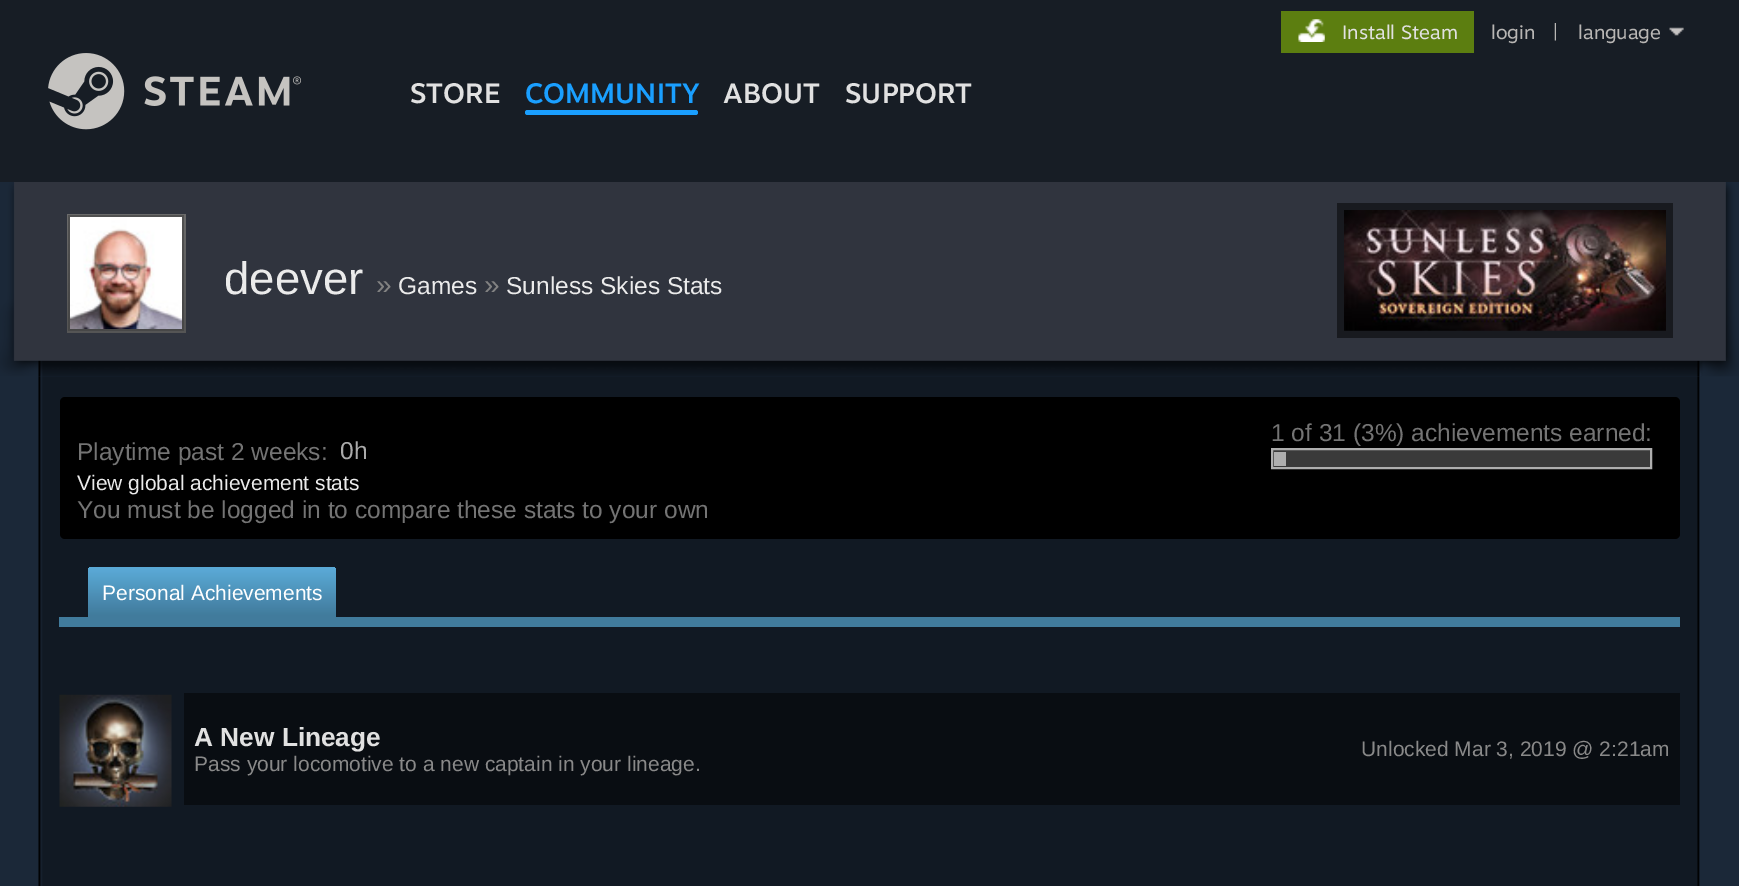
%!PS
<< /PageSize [1739 886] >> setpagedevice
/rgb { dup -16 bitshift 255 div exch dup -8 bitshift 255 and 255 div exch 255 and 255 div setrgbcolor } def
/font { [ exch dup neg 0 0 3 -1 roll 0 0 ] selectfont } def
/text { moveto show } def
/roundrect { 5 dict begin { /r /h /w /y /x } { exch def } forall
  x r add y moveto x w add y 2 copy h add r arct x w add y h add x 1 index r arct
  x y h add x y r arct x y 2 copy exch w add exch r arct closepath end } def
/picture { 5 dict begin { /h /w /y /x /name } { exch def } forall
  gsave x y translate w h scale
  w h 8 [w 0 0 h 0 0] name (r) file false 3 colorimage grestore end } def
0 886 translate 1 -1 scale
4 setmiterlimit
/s1 { /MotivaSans-Regular 19.25 font 16#E1E1E1 rgb } def
/s2 { /MotivaSans-Regular 19.25 font 16#B8B6B4 rgb } def
/s3 { /MotivaSans-Medium 28 font 16#E1E1E1 rgb } def
/s4 { /MotivaSans-Medium 28 font 16#1A9FFF rgb } def
/s5 { /LiberationSans-Regular 45.5 font 16#EBEBEB rgb } def
/s6 { /LiberationSans-Regular 28 font 16#828282 rgb } def
/s7 { /LiberationSans-Regular 24.5 font 16#EBEBEB rgb } def
/s8 { /LiberationSans-Regular 24.5 font 16#747474 rgb } def
/s9 { /LiberationSans-Regular 24.5 font 16#AAAAAA rgb } def
/s10 { /LiberationSans-Regular 21 font 16#EBEBEB rgb } def
/s11 { /LiberationSans-Regular 21 font 16#FFFFFF rgb } def
/s12 { /LiberationSans-Bold 26.25 font 16#E1E1E1 rgb } def
/s13 { /LiberationSans-Regular 21 font 16#898989 rgb } def
16#1B2838 rgb
0 0 1739 886 rectfill
16#2B3340 rgb
14 182 1712 179 rectfill
16#171D25 rgb
0 0 1739 182 rectfill
16#5C7E10 rgb
1281 11 193 42 rectfill
(pic1.raw) 1298 19 27 23 picture
s1
(Install Steam) 1342 39 text
s2
(login) 1491 39 text
(|) 1553 39 text
(language) 1578 39 text
(pic2.raw) 1669 27 15 9 picture
(pic3.raw) 48 53 253 77 picture
s3
(STORE) 410 103 text
s4
(COMMUNITY) 525 103 text
525 110 173 5 2.5 roundrect fill
s3
(ABOUT) 723 103 text
(SUPPORT) 845 103 text
(pic4.raw) 0 182 1739 195 picture
gsave 67 214 moveto 186 214 lineto 186 333 lineto 67 333 lineto closepath clip newpath
<< /ShadingType 2 /ColorSpace /DeviceRGB /Coords [126 214 126 333] /Extend [true true] /Function << /FunctionType 3 /Domain [0 1] /Functions [<< /FunctionType 2 /Domain [0 1] /C0 [0.416 0.416 0.416] /C1 [0.416 0.416 0.416] /N 1 >> << /FunctionType 2 /Domain [0 1] /C0 [0.416 0.416 0.416] /C1 [0.333 0.333 0.333] /N 1 >> << /FunctionType 2 /Domain [0 1] /C0 [0.333 0.333 0.333] /C1 [0.333 0.333 0.333] /N 1 >>] /Bounds [0.05 0.95] /Encode [0 1 0 1 0 1] >> >> shfill grestore
gsave 68 215 moveto 184 215 lineto 184 331 lineto 68 331 lineto closepath clip newpath
<< /ShadingType 2 /ColorSpace /DeviceRGB /Coords [126 215 126 331] /Extend [true true] /Function << /FunctionType 3 /Domain [0 1] /Functions [<< /FunctionType 2 /Domain [0 1] /C0 [0.318 0.318 0.318] /C1 [0.318 0.318 0.318] /N 1 >> << /FunctionType 2 /Domain [0 1] /C0 [0.318 0.318 0.318] /C1 [0.278 0.278 0.278] /N 1 >> << /FunctionType 2 /Domain [0 1] /C0 [0.278 0.278 0.278] /C1 [0.278 0.278 0.278] /N 1 >>] /Bounds [0.05 0.95] /Encode [0 1 0 1 0 1] >> >> shfill grestore
(pic5.raw) 70 217 112 112 picture
s5
(deever) 224 294 text
s6
(») 376 294 text
s7
(Games) 398 294 text
s6
(») 484 294 text
s7
(Sunless Skies Stats) 506 294 text
16#181A1F rgb
1337 203 336 135 rectfill
(pic6.raw) 1344 210 322 121 picture
(pic7.raw) 38 376 1662 510 picture
16#000000 rgb
60 397 1620 142 5 roundrect fill
s8
(1 of 31 \(3%\) achievements earned:) 1271 441 text
16#3A3A3A rgb
1272 449 moveto 1651 449 lineto 1651 468 lineto 1272 468 lineto closepath gsave fill grestore
16#AEAEAE rgb
2 setlinewidth
stroke
1274 452 12 14 rectfill
s8
(Playtime past 2 weeks:) 77 460 text
s9
(0h) 340 459 text
s10
(View global achievement stats) 77 490 text
s8
(You must be logged in to compare these stats to your own) 77 518 text
16#417B9C rgb
59 617 1621 10 rectfill
gsave 92 567 moveto 332 567 lineto 334 567 336 569 336 571 curveto 336 618 lineto 88 618 lineto 88 571 lineto 88 569 90 567 92 567 curveto closepath clip newpath
<< /ShadingType 2 /ColorSpace /DeviceRGB /Coords [212 567 212 618] /Extend [true true] /Function << /FunctionType 3 /Domain [0 1] /Functions [<< /FunctionType 2 /Domain [0 1] /C0 [0.353 0.663 0.839] /C1 [0.353 0.663 0.839] /N 1 >> << /FunctionType 2 /Domain [0 1] /C0 [0.353 0.663 0.839] /C1 [0.255 0.482 0.612] /N 1 >> << /FunctionType 2 /Domain [0 1] /C0 [0.255 0.482 0.612] /C1 [0.255 0.482 0.612] /N 1 >>] /Bounds [0.05 0.95] /Encode [0 1 0 1 0 1] >> >> shfill grestore
s11
(Personal Achievements) 102 600 text
(pic8.raw) 59 694 113 113 picture
16#090D12 rgb
184 693 1496 112 rectfill
s12
(A New Lineage) 194 746 text
s13
(Pass your locomotive to a new captain in your lineage.) 194 771 text
(Unlocked Mar 3, 2019 @ 2:21am) 1361 756 text
showpage
